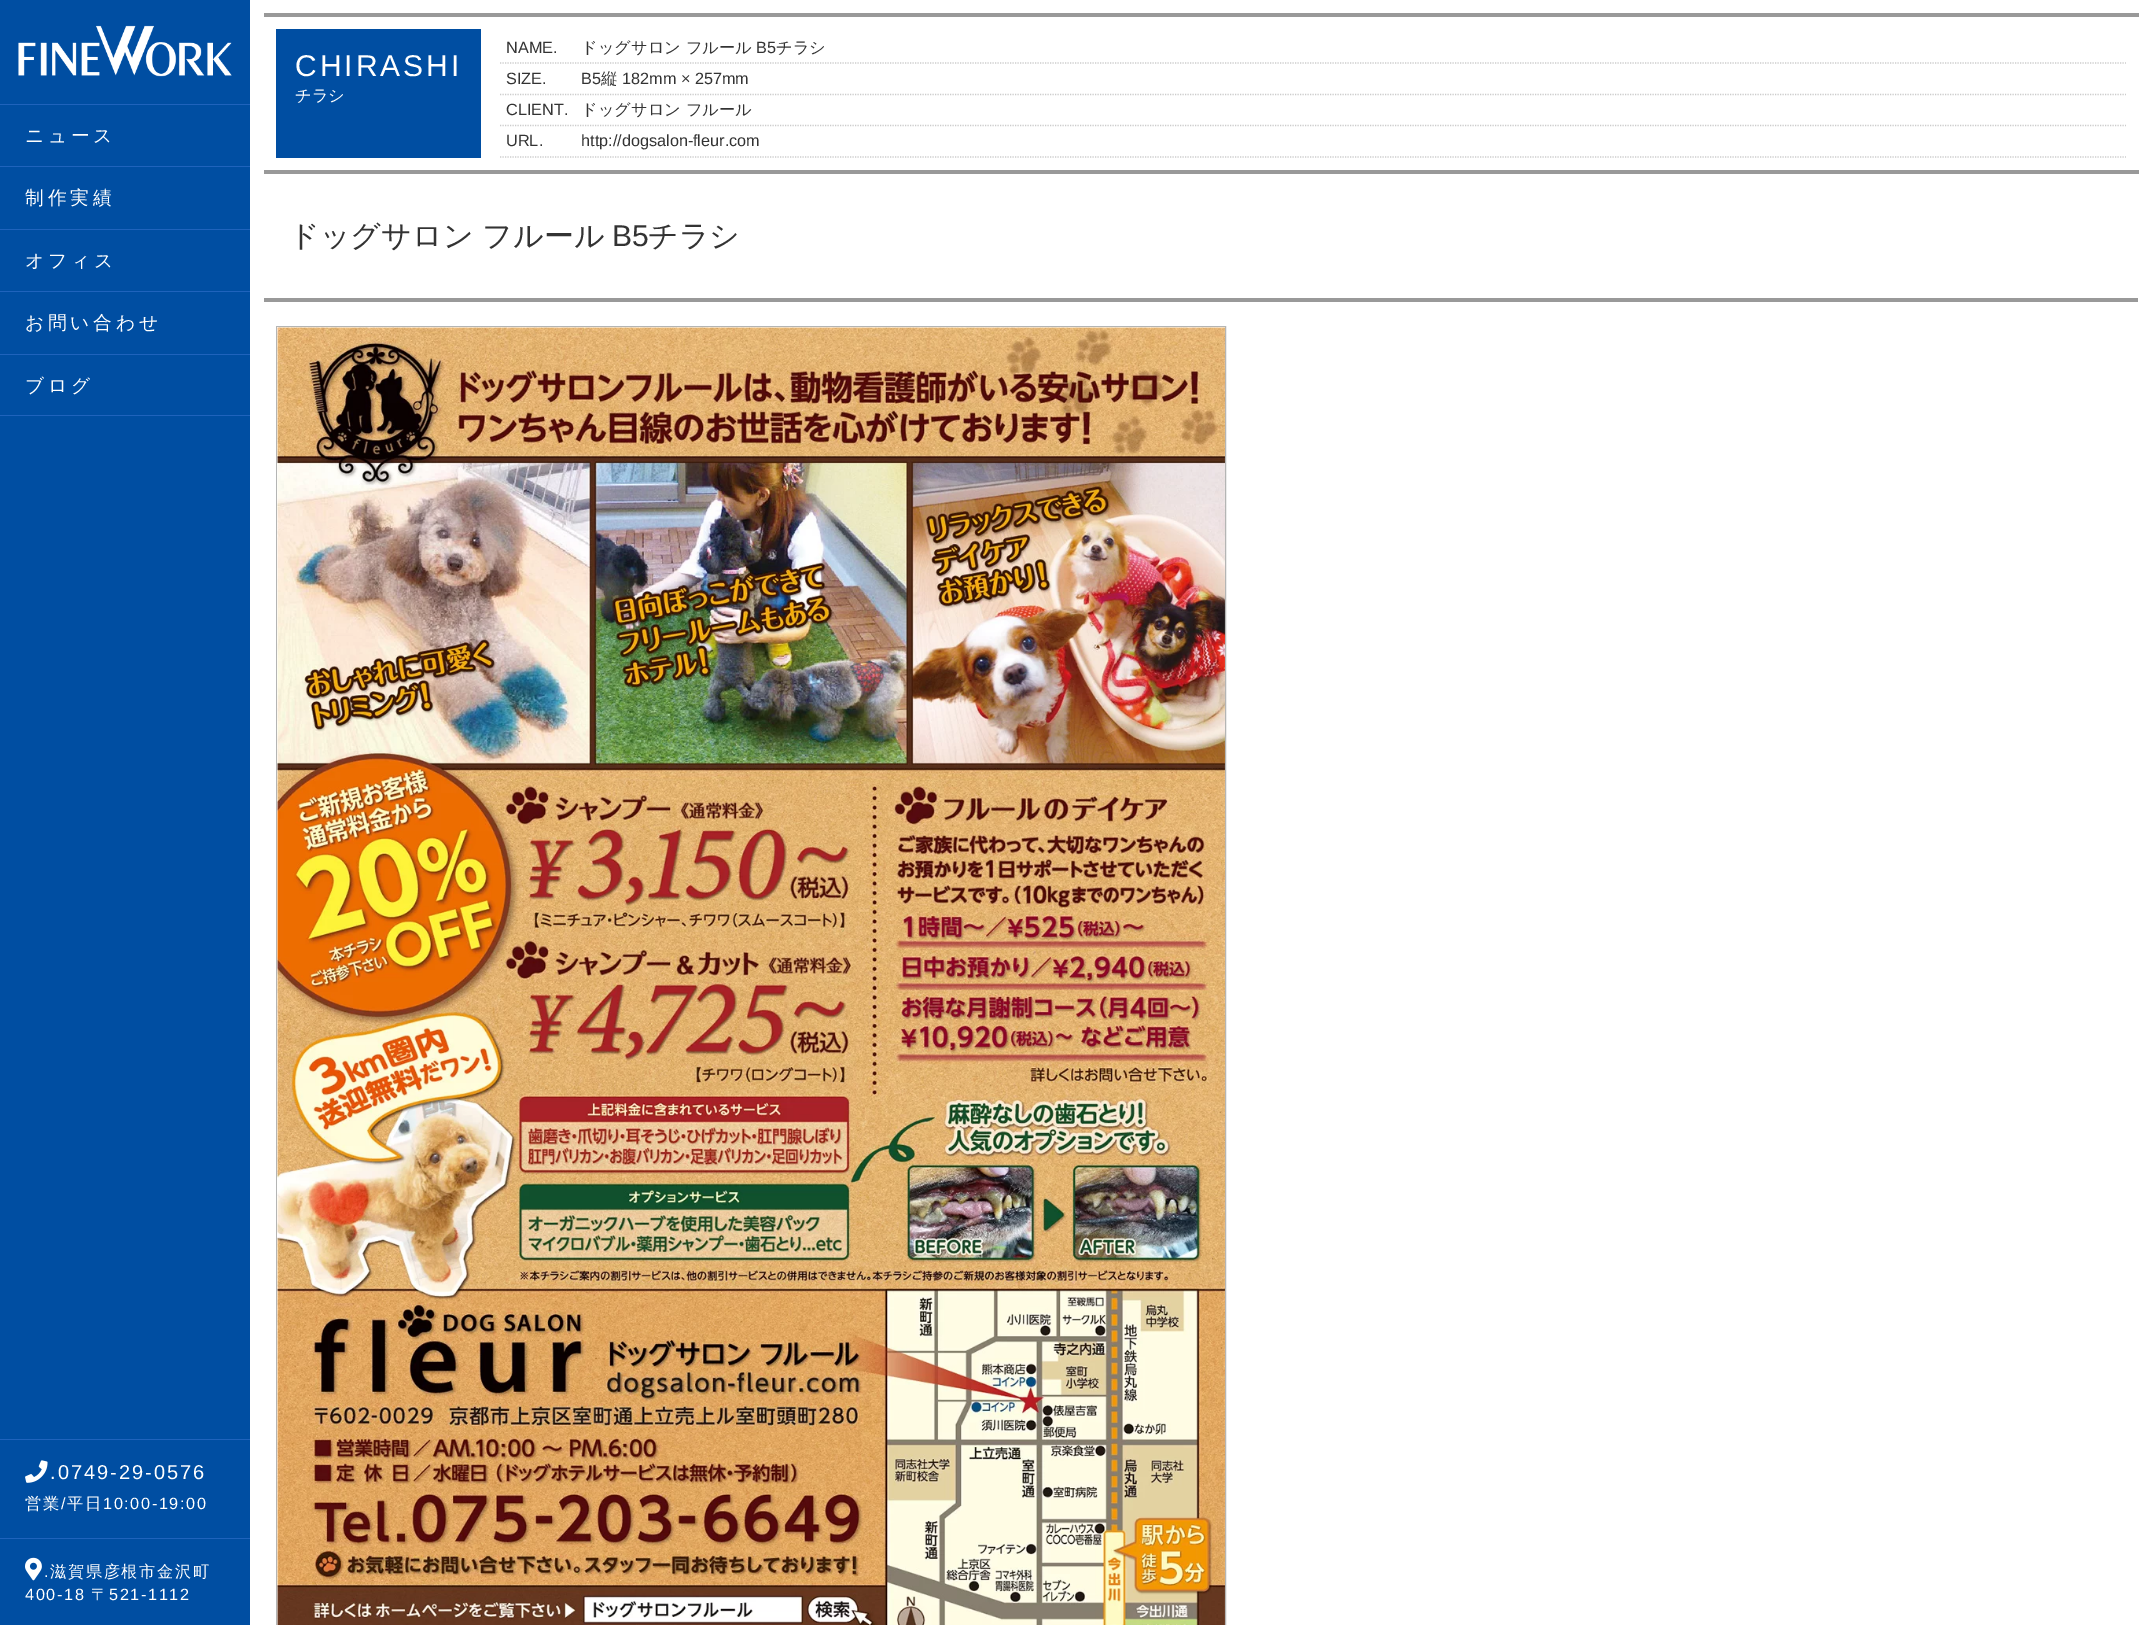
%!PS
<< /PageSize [2150 1625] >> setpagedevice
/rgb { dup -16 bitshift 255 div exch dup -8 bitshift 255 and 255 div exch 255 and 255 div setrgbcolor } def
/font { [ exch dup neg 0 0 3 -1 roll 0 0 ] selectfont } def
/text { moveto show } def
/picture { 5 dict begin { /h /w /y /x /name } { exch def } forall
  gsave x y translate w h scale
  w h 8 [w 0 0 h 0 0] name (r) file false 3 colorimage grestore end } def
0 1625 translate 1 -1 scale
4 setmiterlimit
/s1 { /WenQuanYiZenHei-Medium 16.25 font 16#FFFFFF rgb } def
/s2 { /LiberationSans-Regular 16.25 font 16#333333 rgb } def
/s3 { /WenQuanYiZenHei-Medium 16.25 font 16#333333 rgb } def
/s4 { /WenQuanYiZenHei-Medium 30 font 16#333333 rgb } def
/s5 { /LiberationSans-Regular 30 font 16#333333 rgb } def
16#FFFFFF rgb
0 0 2150 1625 rectfill
16#004EA2 rgb
0 0 250 104 rectfill
(pic1.raw) 18 25 214 52 picture
0 105 250 1520 rectfill
16#1F63BC rgb
0 104 250 1 rectfill
/WenQuanYiZenHei-Medium 18.75 font
16#FFFFFF rgb
25 142 moveto 3.75 0 (ニュース) ashow
16#1F63BC rgb
0 166 250 1 rectfill
16#FFFFFF rgb
25 204 moveto 3.75 0 (制作実績) ashow
16#1F63BC rgb
0 229 250 1 rectfill
16#FFFFFF rgb
25 267 moveto 3.75 0 (オフィス) ashow
16#1F63BC rgb
0 291 250 1 rectfill
16#FFFFFF rgb
25 329 moveto 3.75 0 (お問い合わせ) ashow
16#1F63BC rgb
0 354 250 1 rectfill
0 415 250 1 rectfill
16#FFFFFF rgb
25 392 moveto 3.75 0 (ブログ) ashow
16#1F63BC rgb
0 1439 250 1 rectfill
(pic2.raw) 25 1460 23 23 picture
/LiberationSans-Regular 20 font
16#FFFFFF rgb
50 1479 moveto 2 0 (.0749-29-0576) ashow
/WenQuanYiZenHei-Medium 16.25 font
25 1509 moveto 1.6 0 (営業) ashow
/LiberationSans-Regular 16.25 font
61 1509 moveto 1.6 0 (/) ashow
/WenQuanYiZenHei-Medium 16.25 font
67 1509 moveto 1.6 0 (平日) ashow
/LiberationSans-Regular 16.25 font
103 1509 moveto 1.6 0 (10:00-19:00) ashow
16#1F63BC rgb
0 1538 250 1 rectfill
(pic3.raw) 25 1557 17 24 picture
16#FFFFFF rgb
44 1577 moveto 1.6 0 (.) ashow
/WenQuanYiZenHei-Medium 16.25 font
50 1577 moveto 1.6 0 (滋賀県彦根市金沢町) ashow
/LiberationSans-Regular 16.25 font
25 1600 moveto 1.6 0 (400-18) ashow
/WenQuanYiZenHei-Medium 16.25 font
91 1600 moveto 1.6 0 (〒) ashow
/LiberationSans-Regular 16.25 font
109 1600 moveto 1.6 0 (521-1112) ashow
16#999999 rgb
264 13 1875 4 rectfill
264 170 1875 4 rectfill
16#004EA2 rgb
276 29 205 129 rectfill
/LiberationSans-Regular 30 font
16#FFFFFF rgb
295 76 moveto 3 0 (CHIRASHI) ashow
s1
(チラシ) 295 101 text
16#CCCCCC rgb
1.2 setlinewidth
[1.25 1.25] 0 setdash
500 63 moveto 2126 63 lineto stroke
s2
(NAME.) 506 53 text
s3
(ドッグサロン フルール) 581 53 text
s2
(B5) 756 53 text
s3
(チラシ) 776 53 text
16#CCCCCC rgb
500 94.5 moveto 2126 94.5 lineto stroke
s2
(SIZE.) 506 84 text
(B5) 581 84 text
s3
(縦) 601 84 text
s2
(182mm × 257mm) 622 84 text
16#CCCCCC rgb
500 125.5 moveto 2126 125.5 lineto stroke
s2
(CLIENT.) 506 115 text
s3
(ドッグサロン フルール) 581 115 text
16#CCCCCC rgb
500 157 moveto 2126 157 lineto stroke
s2
(URL.) 506 146 text
(http://dogsalon-fleur.com) 581 146 text
16#999999 rgb
264 298 1874 4 rectfill
s4
(ドッグサロン フルール) 289 246 text
s5
(B5) 612 246 text
s4
(チラシ) 648 246 text
16#B4B5B4 rgb
1 setlinewidth
[] 0 setdash
276.5 326.5 949 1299 rectstroke
(pic4.raw) 277 327 948 1298 picture
showpage
